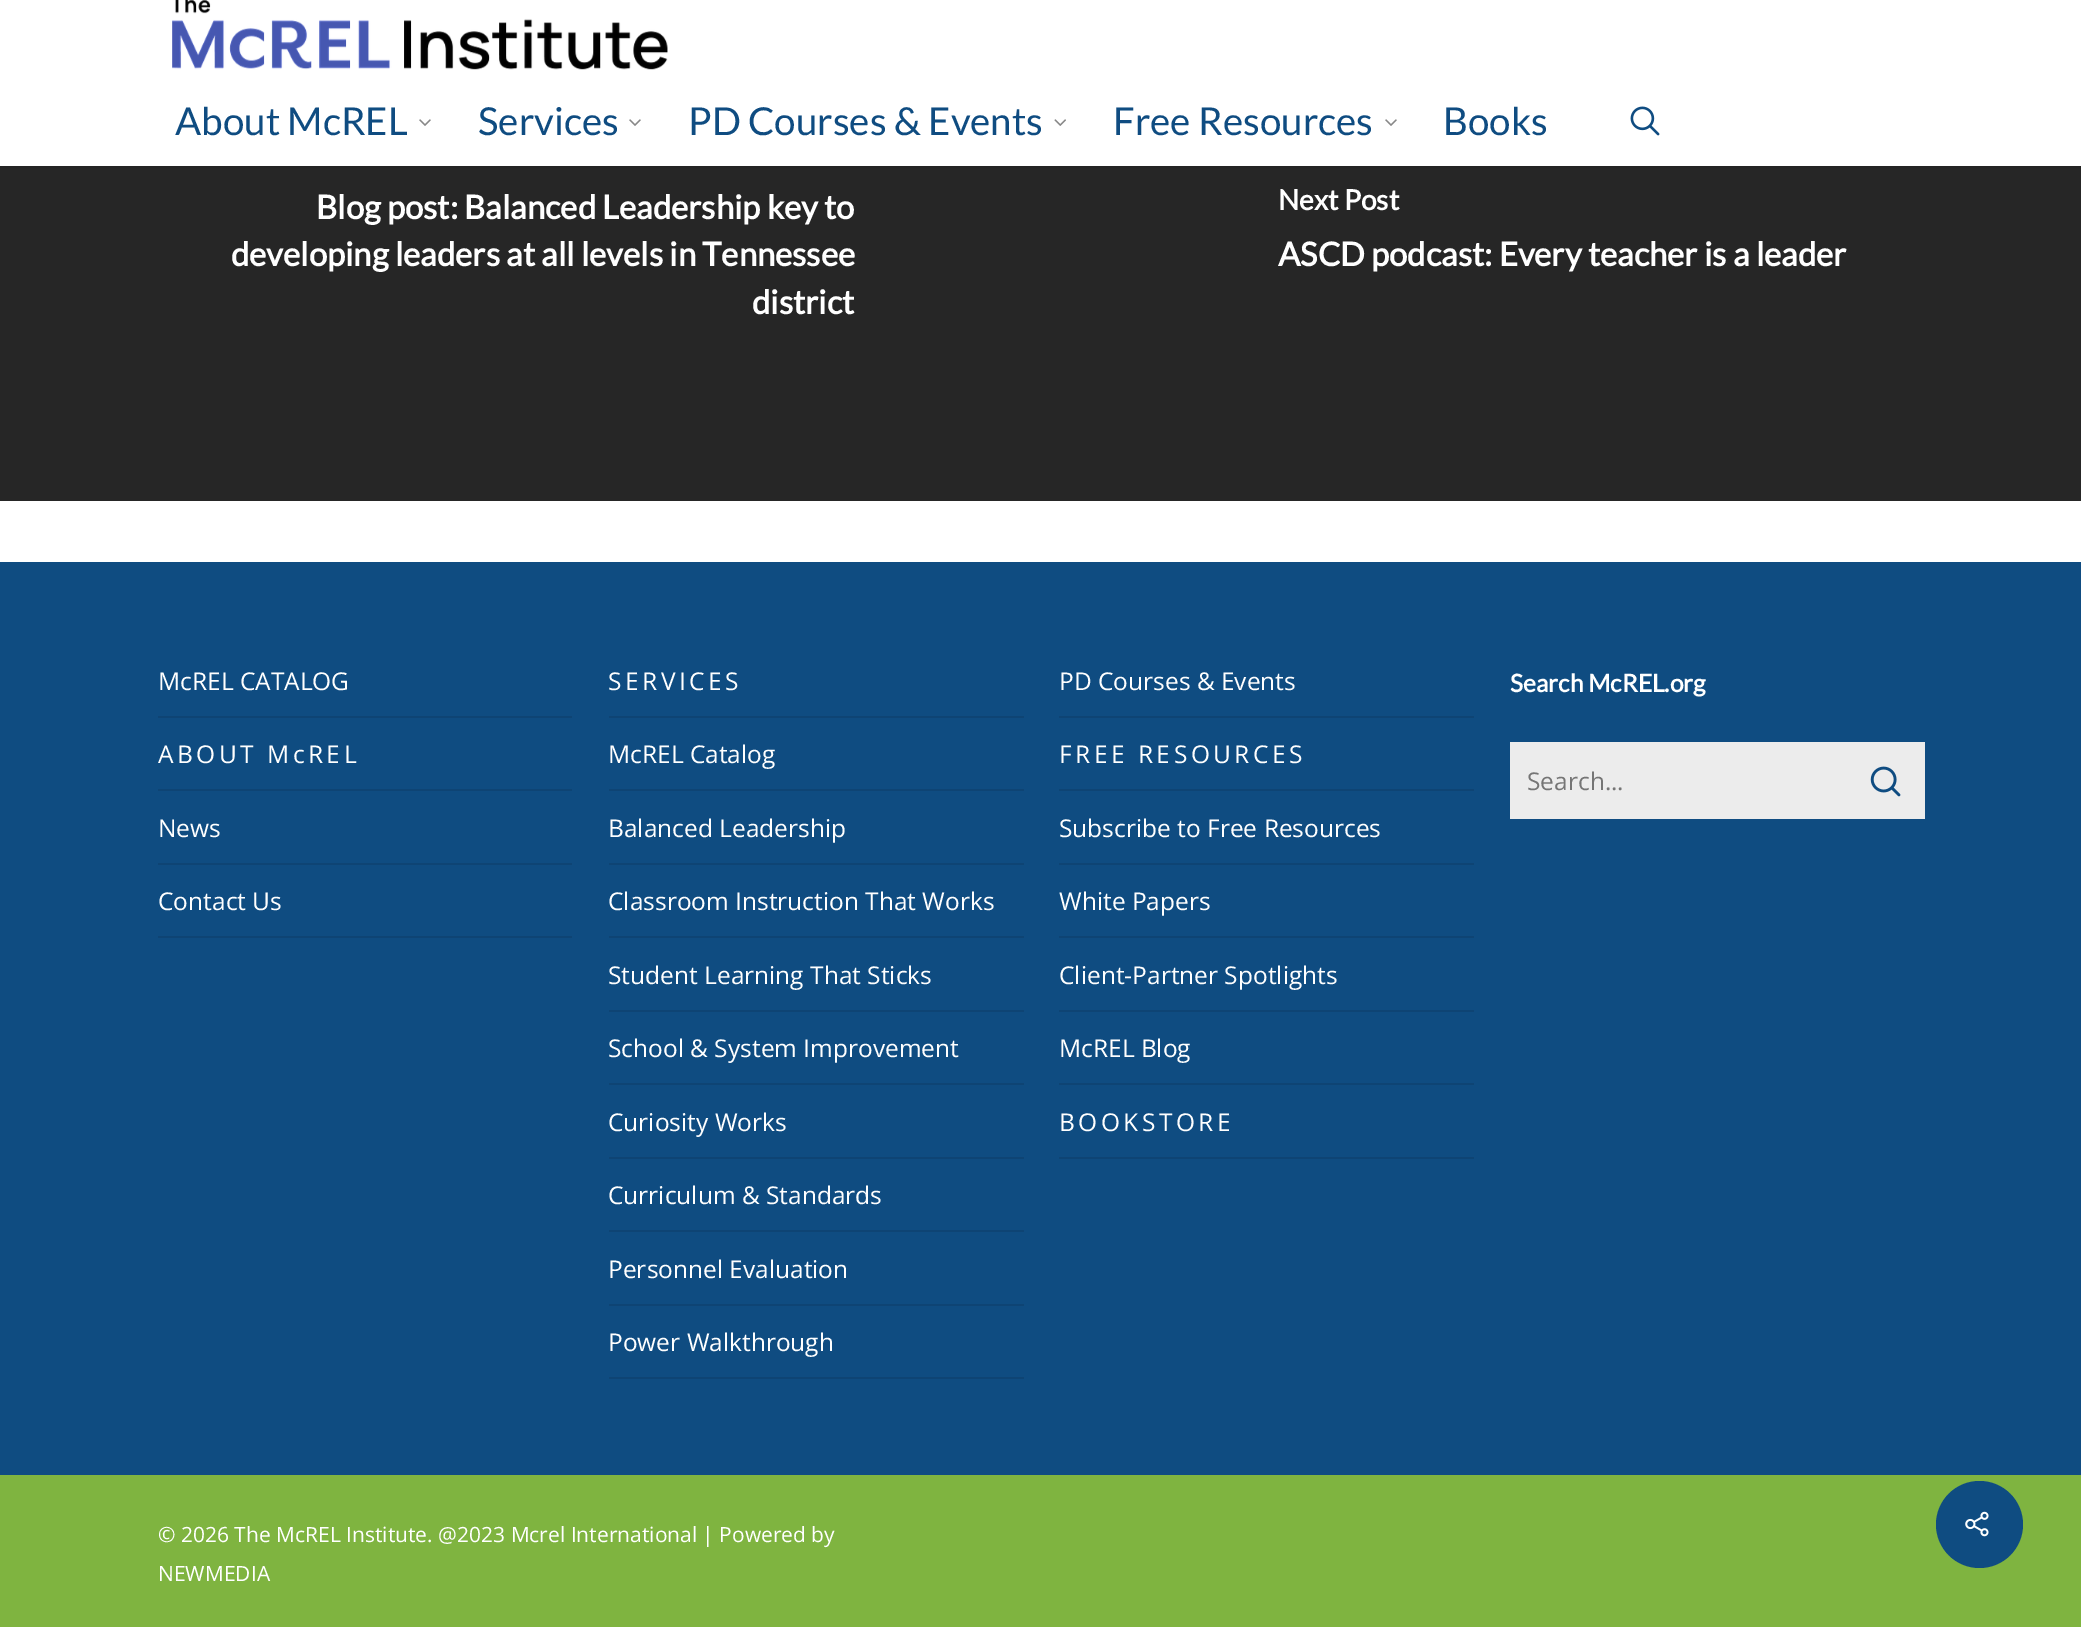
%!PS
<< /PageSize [2081 1627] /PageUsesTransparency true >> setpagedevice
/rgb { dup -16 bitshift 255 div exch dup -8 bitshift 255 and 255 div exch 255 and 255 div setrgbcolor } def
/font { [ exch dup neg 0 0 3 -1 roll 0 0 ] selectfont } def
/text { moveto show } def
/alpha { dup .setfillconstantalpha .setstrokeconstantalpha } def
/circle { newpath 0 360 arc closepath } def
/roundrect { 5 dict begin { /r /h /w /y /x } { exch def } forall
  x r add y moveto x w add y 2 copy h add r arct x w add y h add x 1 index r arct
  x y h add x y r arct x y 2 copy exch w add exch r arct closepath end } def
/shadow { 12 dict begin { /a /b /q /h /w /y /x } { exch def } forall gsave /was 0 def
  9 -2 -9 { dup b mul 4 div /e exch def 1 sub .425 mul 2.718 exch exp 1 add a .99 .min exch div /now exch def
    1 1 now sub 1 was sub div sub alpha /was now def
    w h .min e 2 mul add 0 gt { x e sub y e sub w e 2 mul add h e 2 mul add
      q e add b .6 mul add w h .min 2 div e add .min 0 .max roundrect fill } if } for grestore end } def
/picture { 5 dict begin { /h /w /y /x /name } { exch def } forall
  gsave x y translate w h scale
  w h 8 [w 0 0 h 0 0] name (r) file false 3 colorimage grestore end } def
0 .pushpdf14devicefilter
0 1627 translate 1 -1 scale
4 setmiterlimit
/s1 { /Lato-Regular 38.5 font 16#0F4C81 rgb } def
/s2 { /Lato-Bold 32.75 font 16#FFFFFF rgb } def
/s3 { /Lato-Bold 28 font 16#FFFFFF rgb } def
/s4 { /OpenSans-Regular 24.5 font 16#FFFFFF rgb } def
/s5 { /Lato-Bold 24.5 font 16#FFFFFF rgb } def
/s6 { /OpenSans-Regular 24.5 font 16#757575 rgb } def
/s7 { /OpenSans-Regular 21 font 16#FFFFFF rgb } def
16#FFFFFF rgb
0 0 2081 1627 rectfill
16#262626 rgb
0 166 2081 335 rectfill
16#000000 rgb
0 0 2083 166 0 2.5 0.22 shadow
16#FFFFFF rgb
0 0 2081 166 rectfill
(pic1.raw) 172 0 496 70 picture
s1
(About McREL) 175 135 text
(pic2.raw) 419 119 12 7 picture
(Services) 478 135 text
(pic2.raw) 629 119 12 7 picture
(PD Courses & Events) 688 135 text
(pic3.raw) 1054 119 12 7 picture
(Free Resources) 1113 135 text
(pic2.raw) 1385 119 12 7 picture
(Books) 1443 135 text
(pic4.raw) 1630 106 30 30 picture
s2
(Blog post: Balanced Leadership key to) 316 219 text
(developing leaders at all levels in Tennessee) 231 266 text
(district) 752 314 text
s3
(Next Post) 1278 210 text
s2
(ASCD podcast: Every teacher is a leader) 1278 266 text
16#0F4C81 rgb
0 562 2081 913 rectfill
16#0E4474 rgb
158 716 414 2 rectfill
s4
(McREL CATALOG) 158 690 text
16#0E4474 rgb
158 789 414 2 rectfill
16#FFFFFF rgb
158 763 moveto 3.5 0 (ABOUT McREL) ashow
16#0E4474 rgb
158 863 414 2 rectfill
s4
(News) 158 837 text
16#0E4474 rgb
158 936 414 2 rectfill
s4
(Contact Us) 158 910 text
16#0E4474 rgb
609 716 415 2 rectfill
16#FFFFFF rgb
608 690 moveto 3.5 0 (SERVICES) ashow
16#0E4474 rgb
609 789 415 2 rectfill
s4
(McREL Catalog) 608 763 text
16#0E4474 rgb
609 863 415 2 rectfill
s4
(Balanced Leadership) 608 837 text
16#0E4474 rgb
609 936 415 2 rectfill
s4
(Classroom Instruction That Works) 608 910 text
16#0E4474 rgb
609 1010 415 2 rectfill
s4
(Student Learning That Sticks) 608 984 text
16#0E4474 rgb
609 1083 415 2 rectfill
s4
(School & System Improvement) 608 1057 text
16#0E4474 rgb
609 1157 415 2 rectfill
s4
(Curiosity Works) 608 1131 text
16#0E4474 rgb
609 1230 415 2 rectfill
s4
(Curriculum & Standards) 608 1204 text
16#0E4474 rgb
609 1304 415 2 rectfill
s4
(Personnel Evaluation) 608 1278 text
16#0E4474 rgb
609 1377 415 2 rectfill
s4
(Power Walkthrough) 608 1351 text
16#0E4474 rgb
1059 716 415 2 rectfill
s4
(PD Courses & Events) 1059 690 text
16#0E4474 rgb
1059 789 415 2 rectfill
16#FFFFFF rgb
1059 763 moveto 3.5 0 (FREE RESOURCES) ashow
16#0E4474 rgb
1059 863 415 2 rectfill
s4
(Subscribe to Free Resources) 1059 837 text
16#0E4474 rgb
1059 936 415 2 rectfill
s4
(White Papers) 1059 910 text
16#0E4474 rgb
1059 1010 415 2 rectfill
s4
(Client-Partner Spotlights) 1059 984 text
16#0E4474 rgb
1059 1083 415 2 rectfill
s4
(McREL Blog) 1059 1057 text
16#0E4474 rgb
1059 1157 415 2 rectfill
16#FFFFFF rgb
1059 1131 moveto 3.5 0 (BOOKSTORE) ashow
s5
(Search McREL.org) 1510 692 text
16#ECECEC rgb
1510 742 415 77 rectfill
s6
(Search...) 1527 790 text
(pic5.raw) 1870 766 31 31 picture
16#7FB440 rgb
0 1475 2081 152 rectfill
s7
(© 2026 The McREL Institute. @2023 Mcrel International | Powered by) 158 1542 text
(NEWMEDIA) 158 1581 text
16#0F4C81 rgb
1979.5 1524.5 43.5 circle fill
(pic6.raw) 1965 1511 24 26 picture
.poppdf14devicefilter showpage
